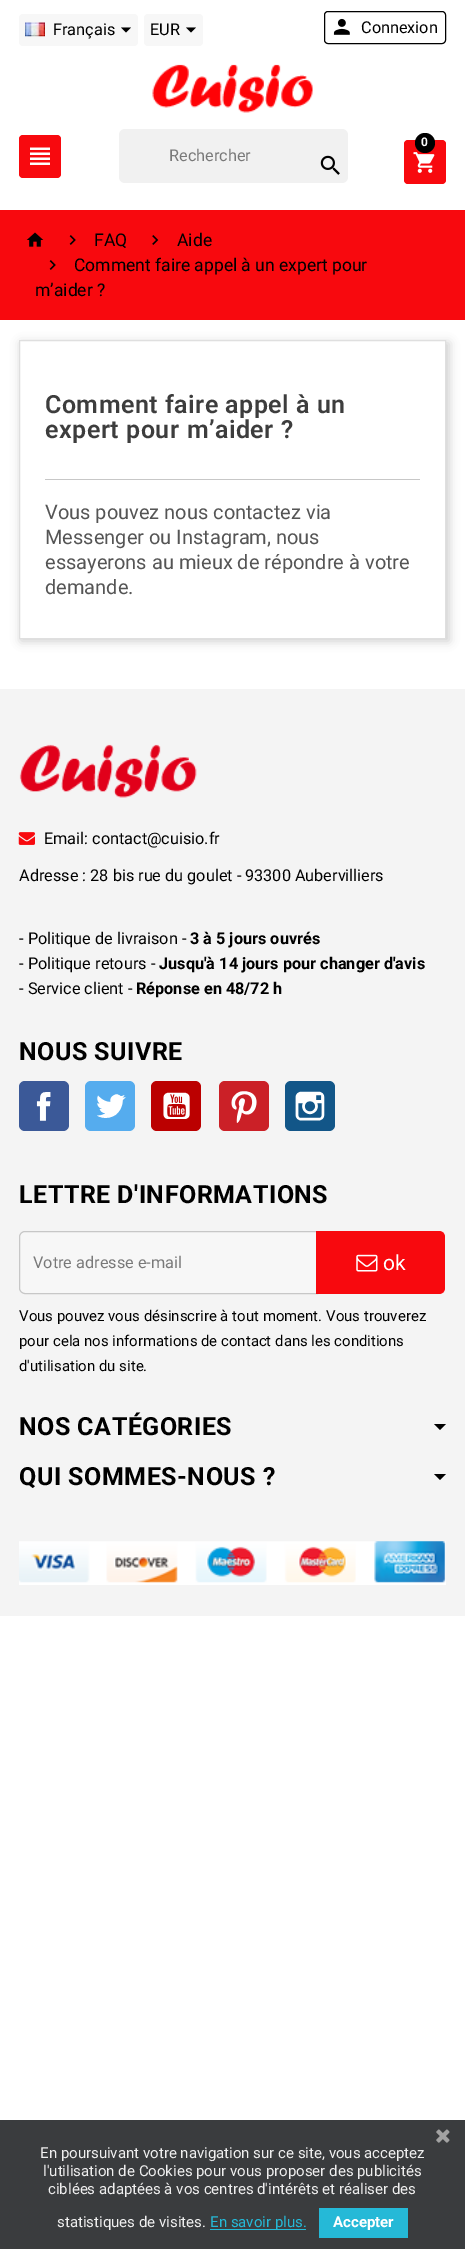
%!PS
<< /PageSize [465 2249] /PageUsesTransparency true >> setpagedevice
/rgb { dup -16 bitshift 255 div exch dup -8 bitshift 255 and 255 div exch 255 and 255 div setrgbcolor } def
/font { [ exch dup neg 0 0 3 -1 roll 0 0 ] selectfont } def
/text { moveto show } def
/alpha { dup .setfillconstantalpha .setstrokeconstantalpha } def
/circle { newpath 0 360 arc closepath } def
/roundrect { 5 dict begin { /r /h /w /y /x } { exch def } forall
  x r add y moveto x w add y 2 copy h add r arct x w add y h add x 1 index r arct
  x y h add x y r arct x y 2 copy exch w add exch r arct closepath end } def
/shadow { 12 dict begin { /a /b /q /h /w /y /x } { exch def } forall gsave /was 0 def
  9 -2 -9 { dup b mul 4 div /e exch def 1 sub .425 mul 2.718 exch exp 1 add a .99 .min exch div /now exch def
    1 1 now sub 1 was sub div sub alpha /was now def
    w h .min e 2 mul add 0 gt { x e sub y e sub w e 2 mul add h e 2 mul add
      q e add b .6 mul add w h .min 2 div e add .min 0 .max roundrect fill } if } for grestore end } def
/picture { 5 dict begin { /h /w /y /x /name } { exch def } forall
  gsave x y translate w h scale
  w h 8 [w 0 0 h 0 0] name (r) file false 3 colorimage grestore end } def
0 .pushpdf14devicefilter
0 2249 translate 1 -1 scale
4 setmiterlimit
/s1 { /Roboto-Regular 16.25 font 16#000000 rgb } def
/s2 { /Roboto-Bold 12 font 16#FFFFFF rgb } def
/s3 { /Roboto-Regular 16.25 font 16#797979 rgb } def
/s4 { /Roboto-Regular 17.5 font 16#000000 rgb } def
/s5 { /Roboto-Regular 20 font 16#555555 rgb } def
/s6 { /Roboto-Bold 16.25 font 16#000000 rgb } def
/s7 { /Roboto-Regular 21 font 16#FFFFFF rgb } def
/s8 { /Roboto-Regular 14.95 font 16#000000 rgb } def
/s9 { /Roboto-Regular 15 font 16#EFEFEF rgb } def
/s10 { /Roboto-Regular 15 font 16#25B9D7 rgb } def
/s11 { /Roboto-Bold 15 font 16#FFFFFF rgb } def
16#FFFFFF rgb
0 0 465 2249 rectfill
16#F7F7F7 rgb
19 14 119 32 4 roundrect fill
(pic1.raw) 25 22 20 15 picture
s1
(Français) 53 35 text
121 27.5 moveto 131 27.5 lineto 126 32.5 lineto closepath fill
16#F7F7F7 rgb
144 14 59 32 4 roundrect fill
s1
(EUR) 150 35 text
186 27.5 moveto 196 27.5 lineto 191 32.5 lineto closepath fill
16#F8090E rgb
19 135 42 43 4 roundrect fill
(pic2.raw) 30 147 20 18 picture
16#000000 rgb
324.5 11.5 121 32 3.5 roundrect stroke
(pic3.raw) 333 18 17 17 picture
(Connexion) 361 33 text
16#F8090E rgb
404 140 42 44 4 roundrect fill
(pic4.raw) 413 152 22 21 picture
16#000000 rgb
425 143 10 circle fill
s2
(0) 421 146 text
16#F1F1F1 rgb
119 129 229 54 6 roundrect fill
s3
(Rechercher) 169 161 text
(pic5.raw) 320 155 20 20 picture
(pic6.raw) 152 64 161 49 picture
16#F8090E rgb
0 210 465 110 rectfill
(pic7.raw) 26 232 18 15 picture
(pic8.raw) 69 235 7 10 picture
s4
(FAQ) 94 246 text
(pic9.raw) 152 235 7 10 picture
(Aide) 177 246 text
(pic8.raw) 49 260 7 10 picture
(Comment faire appel à un expert pour) 74 271 text
(m’aider ?) 35 296 text
21 343 428 298 0 5 0.2 shadow
16#FFFFFF rgb
19.5 340.5 moveto 445.5 340.5 lineto 445.5 638.5 lineto 19.5 638.5 lineto closepath gsave fill grestore
16#DFDFDF rgb
stroke
/Roboto-SemiBold 25 font
16#3D3D3D rgb
45 413 moveto 0.5 0 (Comment faire appel à un) ashow
45 438 moveto 0.5 0 32 0.5 0 (expert pour m’aider ?) awidthshow
16#C7C7C7 rgb
45 479 375 1 rectfill
s5
(Vous pouvez nous contactez via) 45 519 text
(Messenger ou Instagram, nous) 45 544 text
(essayerons au mieux de répondre à votre) 45 569 text
(demande.) 45 594 text
16#F4F4F4 rgb
0 689 465 927 rectfill
(pic10.raw) 19 744 178 54 picture
(pic11.raw) 18 832 17 13 picture
s1
(Email: contact@cuisio.fr) 44 844 text
(Adresse : 28 bis rue du goulet - 93300 Aubervilliers) 19 881 text
(- Politique de livraison -) 19 944 text
s6
(3 à 5 jours ouvrés) 190 944 text
s1
(- Politique retours -) 19 969 text
s6
(Jusqu'à 14 jours pour changer d'avis) 159 969 text
s1
(- Service client -) 19 994 text
s6
(Réponse en 48/72 h) 136 994 text
/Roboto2-Bold 25 font
19 1060 moveto 0.5 0 (NOUS SUIVRE) ashow
16#3B5998 rgb
19 1081 50 50 6 roundrect fill
(pic12.raw) 36 1092 15 29 picture
16#55ACEE rgb
85 1081 50 50 6 roundrect fill
(pic13.raw) 97 1094 29 24 picture
16#BB0000 rgb
151 1081 50 50 6 roundrect fill
(pic14.raw) 163 1092 27 27 picture
16#CB2027 rgb
219 1081 50 50 6 roundrect fill
(pic15.raw) 231 1091 26 32 picture
16#125688 rgb
285 1081 50 50 6 roundrect fill
(pic16.raw) 295 1091 30 30 picture
16#000000 rgb
19 1203 moveto 0.5 0 (LETTRE D'INFORMATIONS) ashow
16#F7F7F7 rgb
25 1231.5 moveto 317.5 1231.5 lineto 317.5 1293.5 lineto 25 1293.5 lineto 22 1293.5 19.5 1291 19.5 1288 curveto 19.5 1237 lineto 19.5 1234 22 1231.5 25 1231.5 curveto closepath gsave fill grestore
16#C7C7C7 rgb
stroke
s3
(Votre adresse e-mail) 33 1268 text
16#F8090E rgb
316 1231 moveto 439 1231 lineto 442.5 1231 445 1233.5 445 1237 curveto 445 1288 lineto 445 1291.5 442.5 1294 439 1294 curveto 316 1294 lineto closepath fill
(pic17.raw) 356 1254 22 18 picture
s7
(ok) 383 1270 text
s8
(Vous pouvez vous désinscrire à tout moment. Vous trouverez) 19 1321 text
(pour cela nos informations de contact dans les conditions) 19 1346 text
(d'utilisation du site.) 19 1371 text
/Roboto2-Bold 25 font
19 1435 moveto 0.5 0 (NOS CATÉGORIES) ashow
434 1424 moveto 446 1424 lineto 440 1430 lineto closepath fill
19 1485 moveto 0.5 0 (QUI SOMMES-NOUS ?) ashow
434 1474 moveto 446 1474 lineto 440 1480 lineto closepath fill
(pic18.raw) 19 1541 427 44 picture
16#3A3C3E rgb
0 2120 465 129 rectfill
(pic19.raw) 436 2129 14 14 picture
s9
(En poursuivant votre navigation sur ce site, vous acceptez) 40 2158 text
(l'utilisation de Cookies pour vous proposer des publicités) 43 2176 text
(ciblées adaptées à vos centres d'intérêts et réaliser des) 48 2194 text
(statistiques de visites.) 57 2227 text
16#25B9D7 rgb
210 2229 96 1 rectfill
(En savoir plus.) 210 2227 text
319 2208 89 30 rectfill
s11
(Accepter) 333 2227 text
.poppdf14devicefilter showpage
